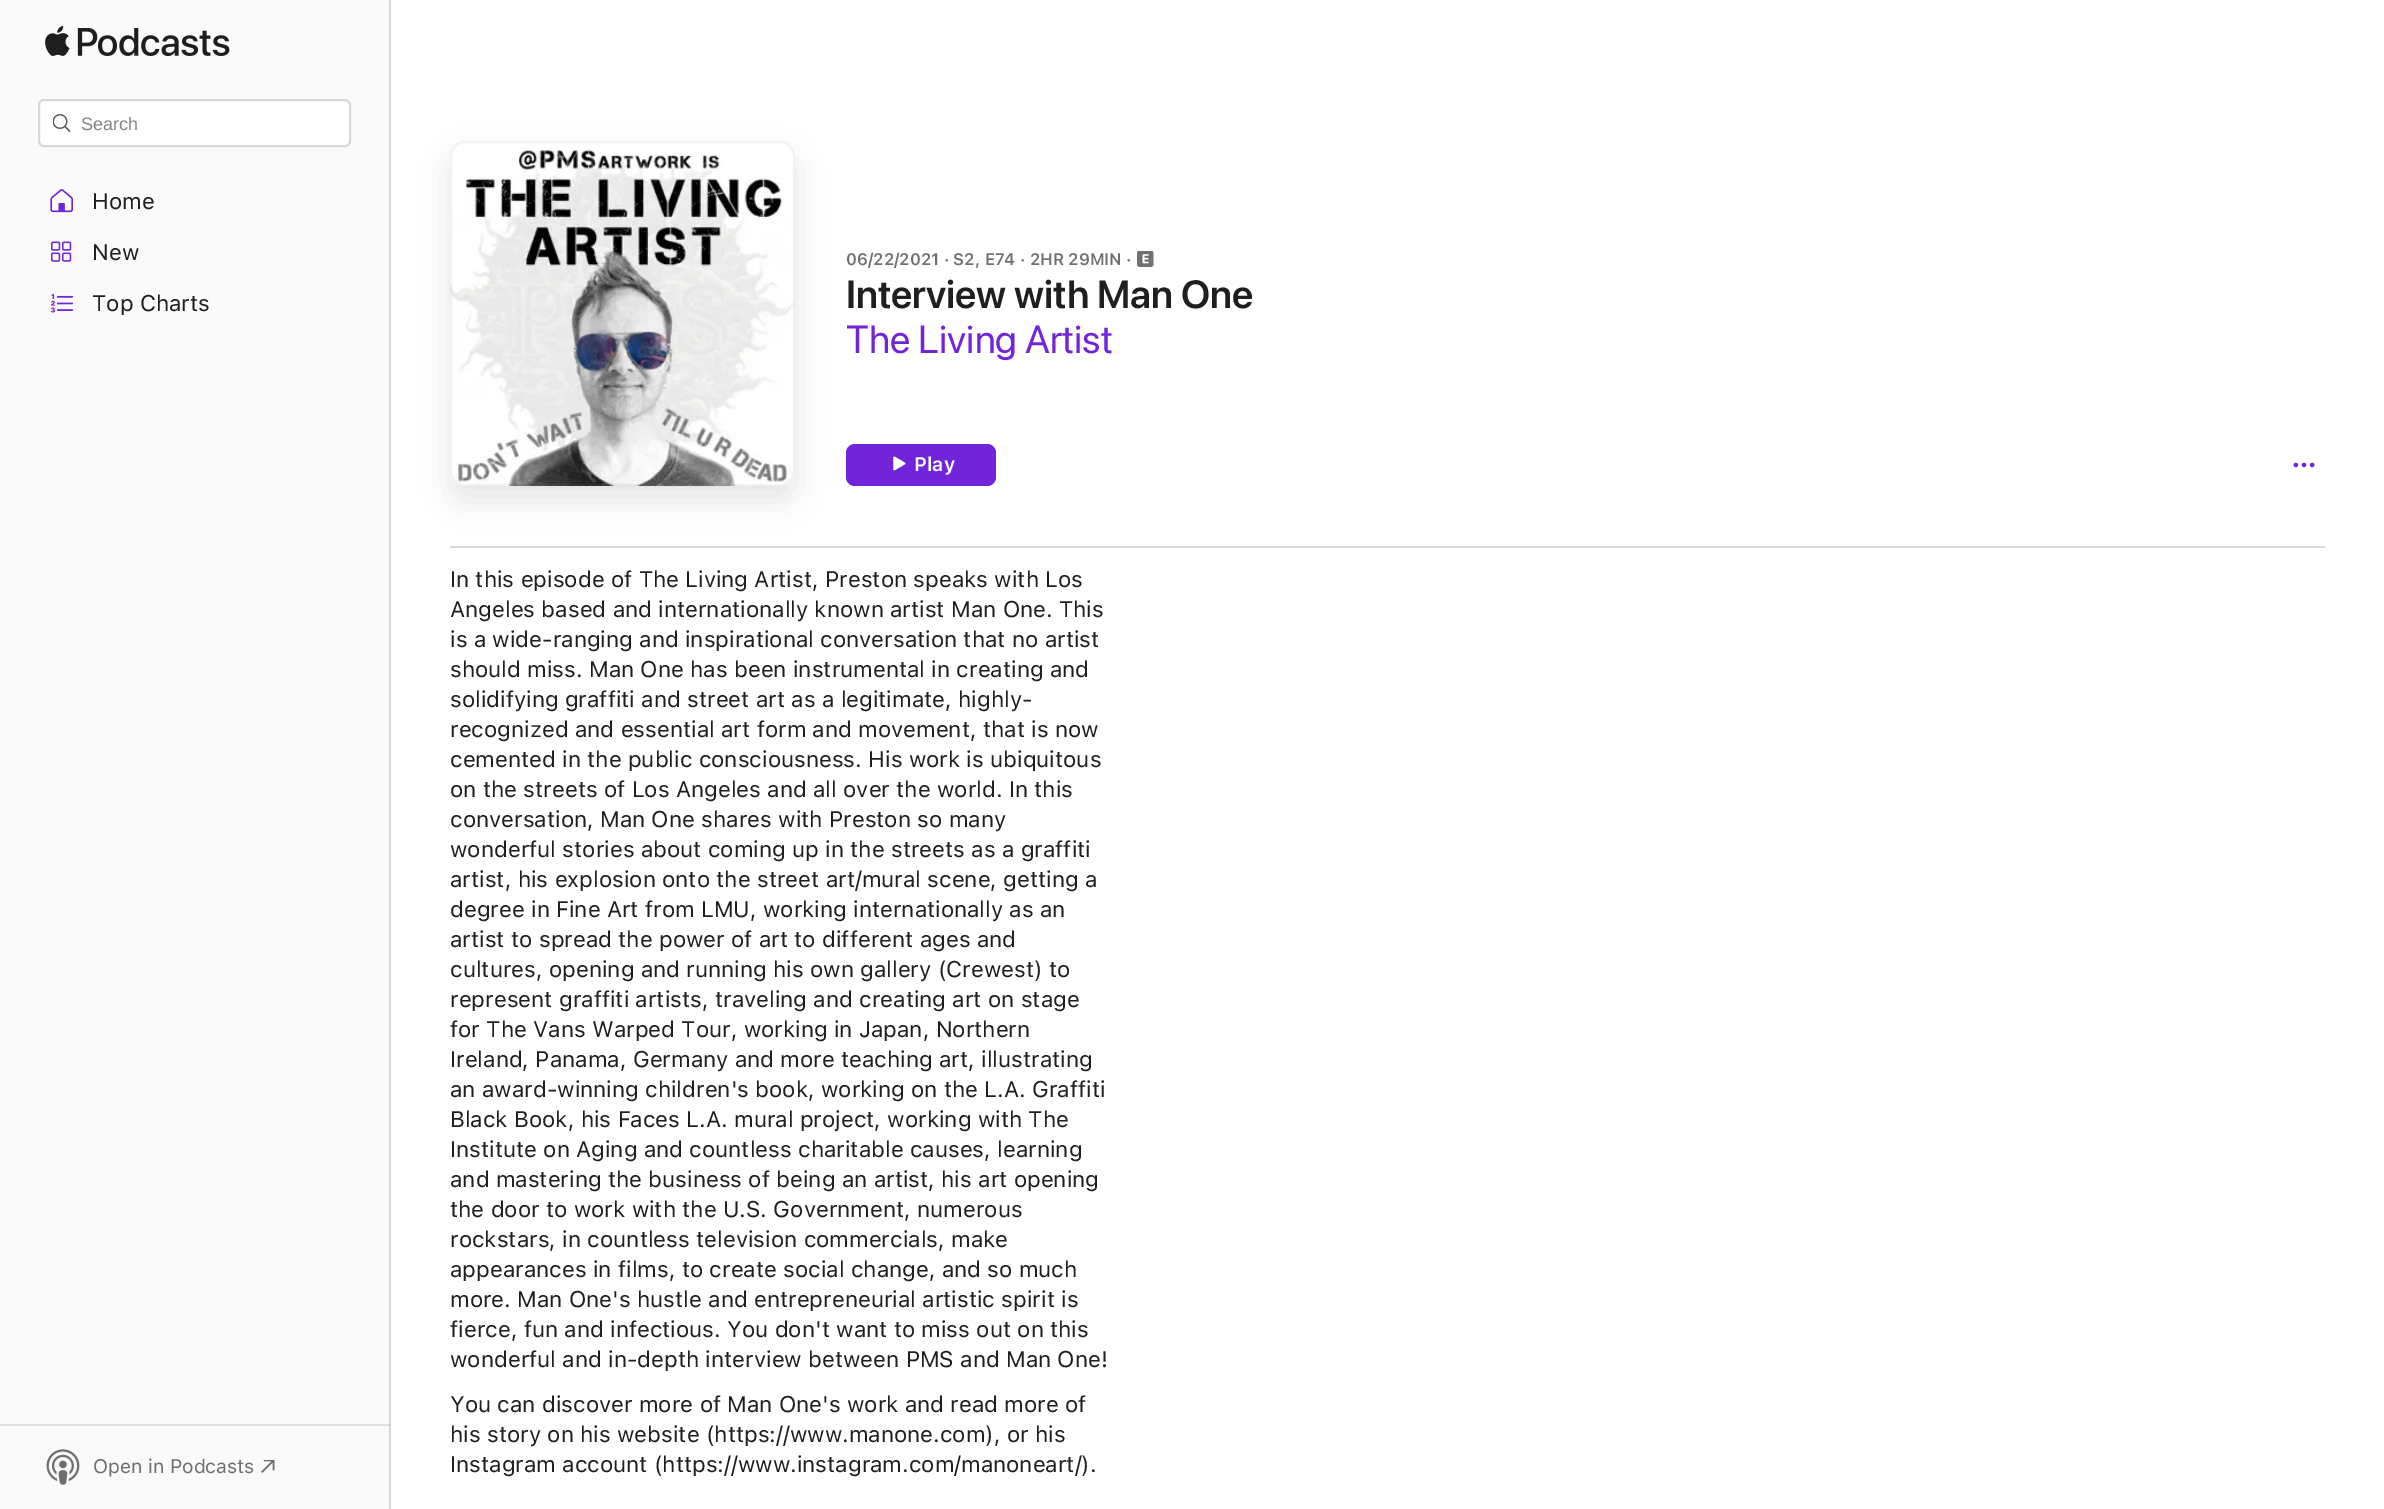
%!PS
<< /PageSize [2384 1509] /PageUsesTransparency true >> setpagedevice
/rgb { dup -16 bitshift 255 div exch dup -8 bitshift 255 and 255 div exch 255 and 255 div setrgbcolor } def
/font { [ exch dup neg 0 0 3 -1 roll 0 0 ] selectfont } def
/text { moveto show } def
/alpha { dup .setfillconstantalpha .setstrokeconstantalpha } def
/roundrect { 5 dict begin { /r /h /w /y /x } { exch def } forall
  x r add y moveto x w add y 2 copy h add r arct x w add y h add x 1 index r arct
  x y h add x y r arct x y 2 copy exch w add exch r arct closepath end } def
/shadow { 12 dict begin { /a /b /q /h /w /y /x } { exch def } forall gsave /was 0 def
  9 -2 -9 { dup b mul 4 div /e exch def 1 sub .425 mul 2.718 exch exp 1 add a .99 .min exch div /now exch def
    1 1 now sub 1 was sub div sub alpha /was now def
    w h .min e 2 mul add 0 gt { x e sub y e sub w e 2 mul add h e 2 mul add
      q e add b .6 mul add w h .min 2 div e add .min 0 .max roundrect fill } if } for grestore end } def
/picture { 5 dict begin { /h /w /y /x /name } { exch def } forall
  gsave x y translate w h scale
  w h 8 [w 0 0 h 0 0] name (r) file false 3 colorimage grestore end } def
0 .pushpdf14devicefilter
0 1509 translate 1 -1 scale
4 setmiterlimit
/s1 { /LiberationSans-Regular 18 font 16#858585 rgb } def
/s2 { /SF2-Regular 22.5 font 16#1F1F1F rgb } def
/s3 { /SF2-Regular 19.5 font 16#707070 rgb } def
/s4 { /SF-SemiBold 16.5 font 16#707070 rgb } def
/s5 { /SF2-SemiBold 39 font 16#1F1F1F rgb } def
/s6 { /SF-Regular 39 font 16#7224D8 rgb } def
/s7 { /SF-SemiBold 19.5 font 16#FFFFFF rgb } def
16#FFFFFF rgb
0 0 2384 1509 rectfill
16#D9D9D9 rgb
390 0 1 1509 rectfill
16#FAFAFA rgb
0 0 389 1509 rectfill
16#E1E1E1 rgb
0 1424 390 2 rectfill
16#D5D5D5 rgb
389 0 1 1509 rectfill
16#C0C0C0 rgb
389 1424 1 2 rectfill
(pic1.raw) 45 26 185 31 picture
16#FFFFFF rgb
39 100 311 46 5 roundrect gsave fill grestore
16#D9D9D9 rgb
2 setlinewidth
stroke
(pic2.raw) 53 114 18 18 picture
s1
(Search) 81 130 text
(pic3.raw) 50 189 23 24 picture
s2
(Home) 92 209 text
(pic4.raw) 51 241 21 21 picture
(New) 92 260 text
(pic5.raw) 51 294 23 19 picture
(Top Charts) 92 311 text
(pic6.raw) 46 1449 34 36 picture
s3
(Open in Podcasts) 93 1473 text
(pic7.raw) 261 1460 14 13 picture
16#D9D9D9 rgb
450 546 1875 2 rectfill
gsave
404 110 moveto 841 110 lineto 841 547 lineto 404 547 lineto closepath 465 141 moveto 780 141 lineto 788.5 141 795 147.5 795 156 curveto 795 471 lineto 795 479.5 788.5 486 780 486 curveto 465 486 lineto 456.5 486 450 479.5 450 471 curveto 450 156 lineto 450 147.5 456.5 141 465 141 curveto closepath eoclip newpath
16#000000 rgb
450 156 345 345 15 15 0.1 shadow
grestore
(pic8.raw) 450 150 345 336 picture
0.1 alpha
16#808080 rgb
451 142 343 343 14 roundrect stroke
1 alpha
s4
(06/22/2021 · S2, E74 · 2HR 29MIN ·) 846 265 text
(pic9.raw) 1137 251 17 16 picture
s5
(Interview with Man One) 846 308 text
s6
(The Living Artist) 846 353 text
846 444 150 42 9 roundrect fill
(pic10.raw) 893 456 13 15 picture
s7
(Play) 914 471 text
(pic11.raw) 2293 462 22 6 picture
s2
(In this episode of The Living Artist, Preston speaks with Los) 450 587 text
(Angeles based and internationally known artist Man One. This) 450 617 text
(is a wide-ranging and inspirational conversation that no artist) 450 647 text
(should miss. Man One has been instrumental in creating and) 450 677 text
(solidifying graffiti and street art as a legitimate, highly-) 450 707 text
(recognized and essential art form and movement, that is now) 450 737 text
(cemented in the public consciousness. His work is ubiquitous) 450 767 text
(on the streets of Los Angeles and all over the world. In this) 450 797 text
(conversation, Man One shares with Preston so many) 450 827 text
(wonderful stories about coming up in the streets as a graffiti) 450 857 text
(artist, his explosion onto the street art/mural scene, getting a) 450 887 text
(degree in Fine Art from LMU, working internationally as an) 450 917 text
(artist to spread the power of art to different ages and) 450 947 text
(cultures, opening and running his own gallery \(Crewest\) to) 450 977 text
(represent graffiti artists, traveling and creating art on stage) 450 1007 text
(for The Vans Warped Tour, working in Japan, Northern) 450 1037 text
(Ireland, Panama, Germany and more teaching art, illustrating) 450 1067 text
(an award-winning children's book, working on the L.A. Graffiti) 450 1097 text
(Black Book, his Faces L.A. mural project, working with The) 450 1127 text
(Institute on Aging and countless charitable causes, learning) 450 1157 text
(and mastering the business of being an artist, his art opening) 450 1187 text
(the door to work with the U.S. Government, numerous) 450 1217 text
(rockstars, in countless television commercials, make) 450 1247 text
(appearances in films, to create social change, and so much) 450 1277 text
(more. Man One's hustle and entrepreneurial artistic spirit is) 450 1307 text
(fierce, fun and infectious. You don't want to miss out on this) 450 1337 text
(wonderful and in-depth interview between PMS and Man One!) 450 1367 text
(You can discover more of Man One's work and read more of) 450 1412 text
(his story on his website \(https://www.manone.com\), or his) 450 1442 text
(Instagram account \(https://www.instagram.com/manoneart/\).) 450 1472 text
.poppdf14devicefilter showpage
